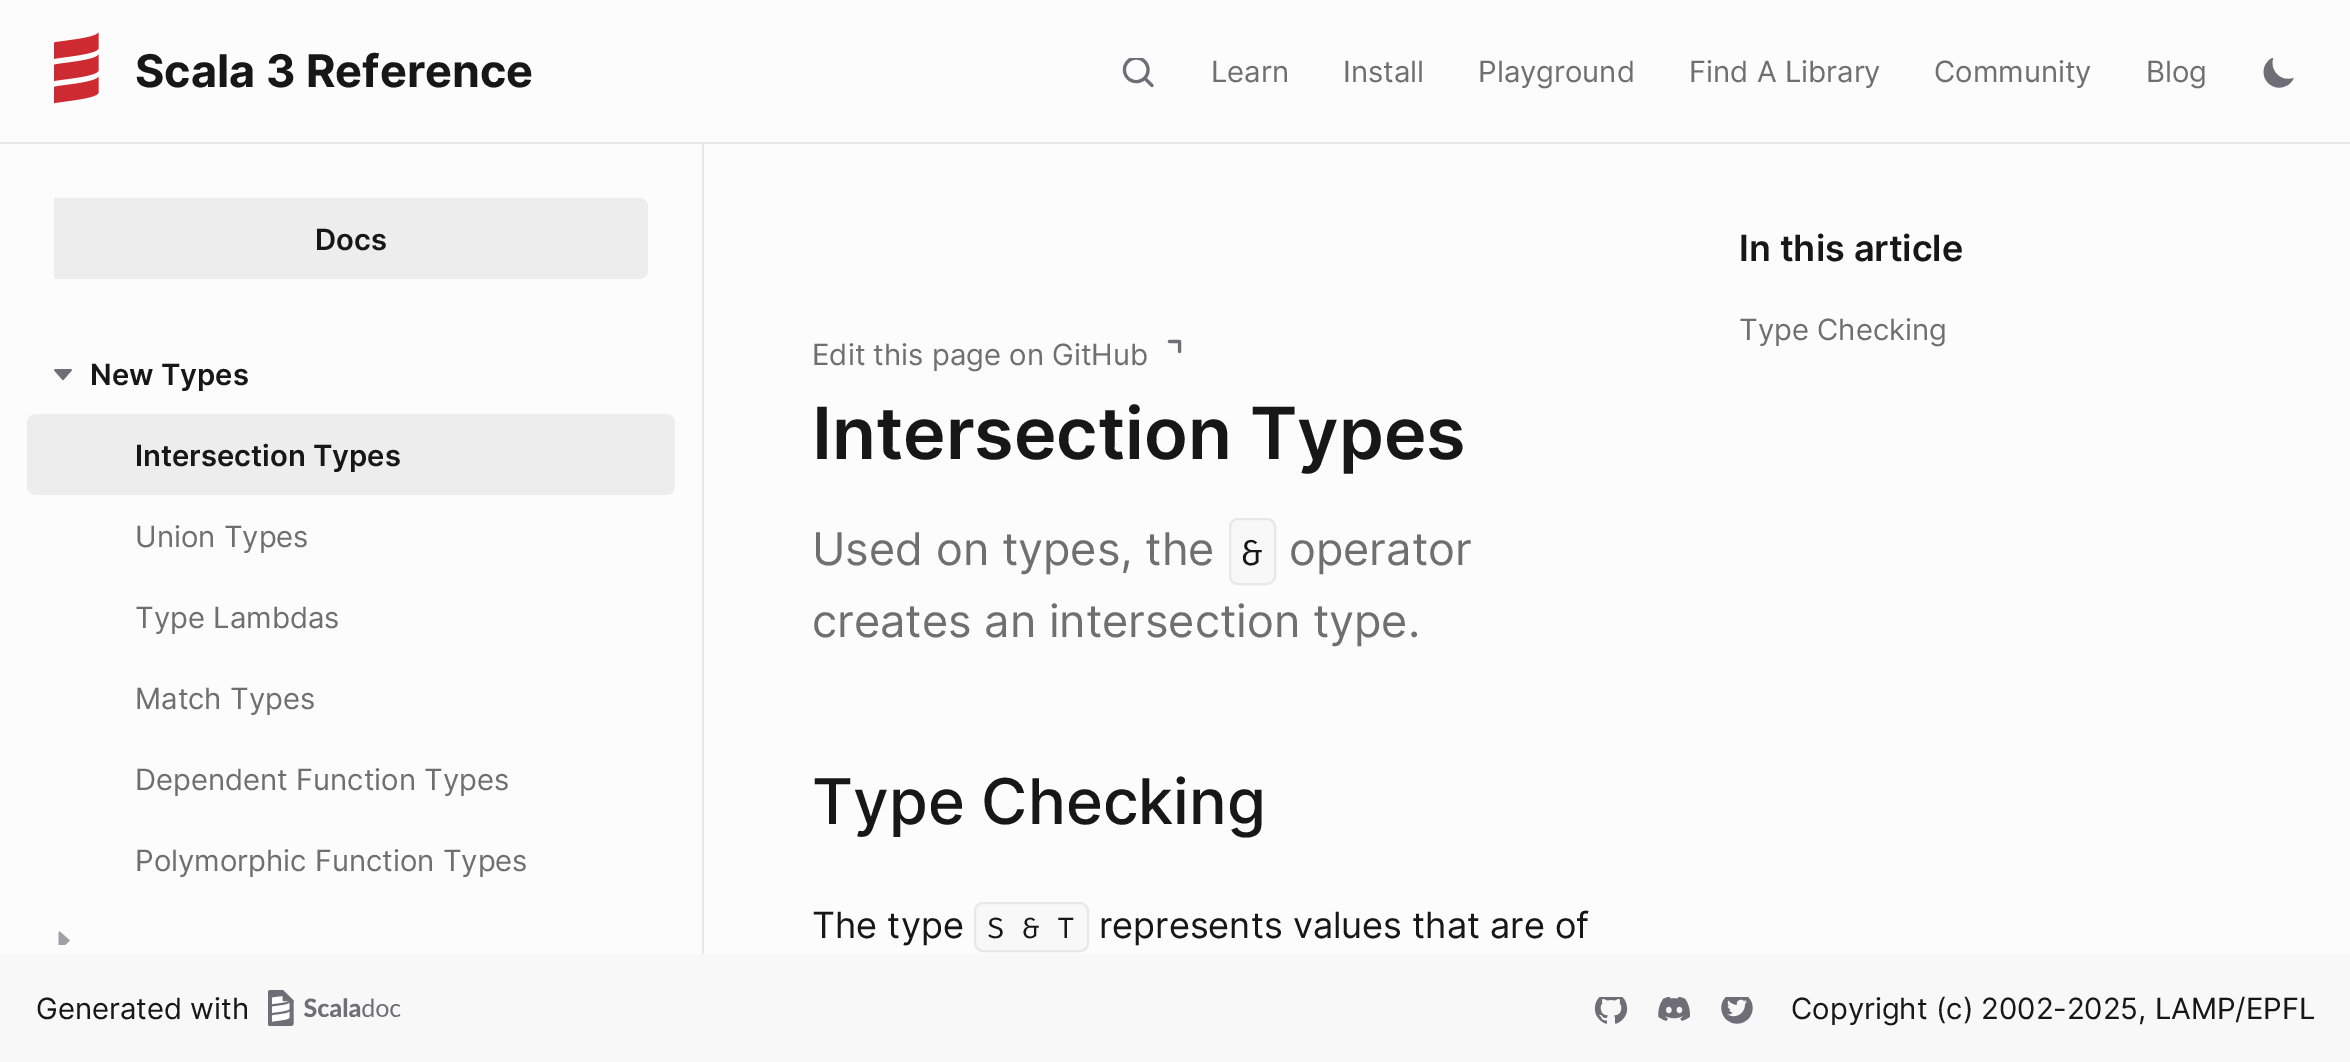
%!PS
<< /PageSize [2350 1062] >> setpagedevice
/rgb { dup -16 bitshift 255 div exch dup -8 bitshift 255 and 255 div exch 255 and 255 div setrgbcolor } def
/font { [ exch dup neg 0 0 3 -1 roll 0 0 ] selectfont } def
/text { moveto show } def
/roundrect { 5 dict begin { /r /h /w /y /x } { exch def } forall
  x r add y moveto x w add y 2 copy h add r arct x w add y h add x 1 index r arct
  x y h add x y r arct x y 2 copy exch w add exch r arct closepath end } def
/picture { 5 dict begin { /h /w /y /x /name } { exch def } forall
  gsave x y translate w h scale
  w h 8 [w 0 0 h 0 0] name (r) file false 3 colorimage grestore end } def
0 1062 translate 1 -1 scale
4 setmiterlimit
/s1 { /Inter-Bold 45 font 16#171717 rgb } def
/s2 { /Inter-Regular 29.25 font 16#6F6F6F rgb } def
/s3 { /Inter-SemiBold 29.25 font 16#171717 rgb } def
/s4 { /Inter-SemiBold 36 font 16#171717 rgb } def
/s5 { /Inter-SemiBold 72 font 16#171717 rgb } def
/s6 { /Inter-Regular 45 font 16#6F6F6F rgb } def
/s7 { /FiraCode-Regular 36 font 16#171717 rgb } def
/s8 { /Inter-Medium 63 font 16#171717 rgb } def
/s9 { /Inter-Regular 36 font 16#171717 rgb } def
/s10 { /FiraCode-Regular 29.25 font 16#171717 rgb } def
/s11 { /Inter-Regular 29.25 font 16#171717 rgb } def
16#FCFCFC rgb
0 0 2350 1062 rectfill
16#E8E8E8 rgb
0 142 2350 2 rectfill
(pic1.raw) 54 32 45 72 picture
s1
(Scala 3 Reference) 135 87 text
(pic2.raw) 1122 58 32 30 picture
s2
(Learn) 1211 82 text
(Install) 1343 82 text
(Playground) 1478 82 text
(Find A Library) 1689 82 text
(Community) 1934 82 text
(Blog) 2146 82 text
(pic3.raw) 2263 58 31 30 picture
16#E8E8E8 rgb
702 144 2 812 rectfill
16#EDEDED rgb
54 198 moveto 639 198 lineto 644 198 648 202 648 207 curveto 648 270 lineto 648 275 644 279 639 279 curveto 54 279 lineto closepath fill
s3
(Docs) 315 250 text
(pic4.raw) 54 369 18 12 picture
(New Types) 90 385 text
16#EDEDED rgb
27 414 648 81 9 roundrect fill
s3
(Intersection Types) 135 466 text
s2
(Union Types) 135 547 text
(Type Lambdas) 135 628 text
(Match Types) 135 709 text
(Dependent Function Types) 135 790 text
(Polymorphic Function Types) 135 871 text
(pic5.raw) 58 931 12 14 picture
s4
(In this article) 1739 261 text
s2
(Type Checking) 1739 340 text
(Edit this page on GitHub) 812 365 text
(pic6.raw) 1167 339 15 15 picture
s5
(Intersection Types) 812 459 text
s6
(Used on types, the) 812 565 text
16#F8F8F8 rgb
1230 519 45 65 8 roundrect gsave fill grestore
16#E8E8E8 rgb
2 setlinewidth
stroke
s7
(&) 1241 565 text
s6
(operator) 1289 565 text
(creates an intersection type.) 812 637 text
s8
(Type Checking) 812 824 text
s9
(The type) 812 938 text
16#F8F8F8 rgb
975 903 113 48 8 roundrect gsave fill grestore
16#E8E8E8 rgb
stroke
s10
(S & T) 987 938 text
s9
(represents values that are of) 1099 938 text
16#F8F8F8 rgb
0 954 2350 108 rectfill
s11
(Generated with) 36 1019 text
(pic7.raw) 268 990 133 36 picture
(pic8.raw) 1594 997 34 27 picture
(pic9.raw) 1658 997 32 24 picture
(pic10.raw) 1721 997 32 27 picture
(Copyright \(c\) 2002-2025, LAMP/EPFL) 1791 1019 text
showpage
